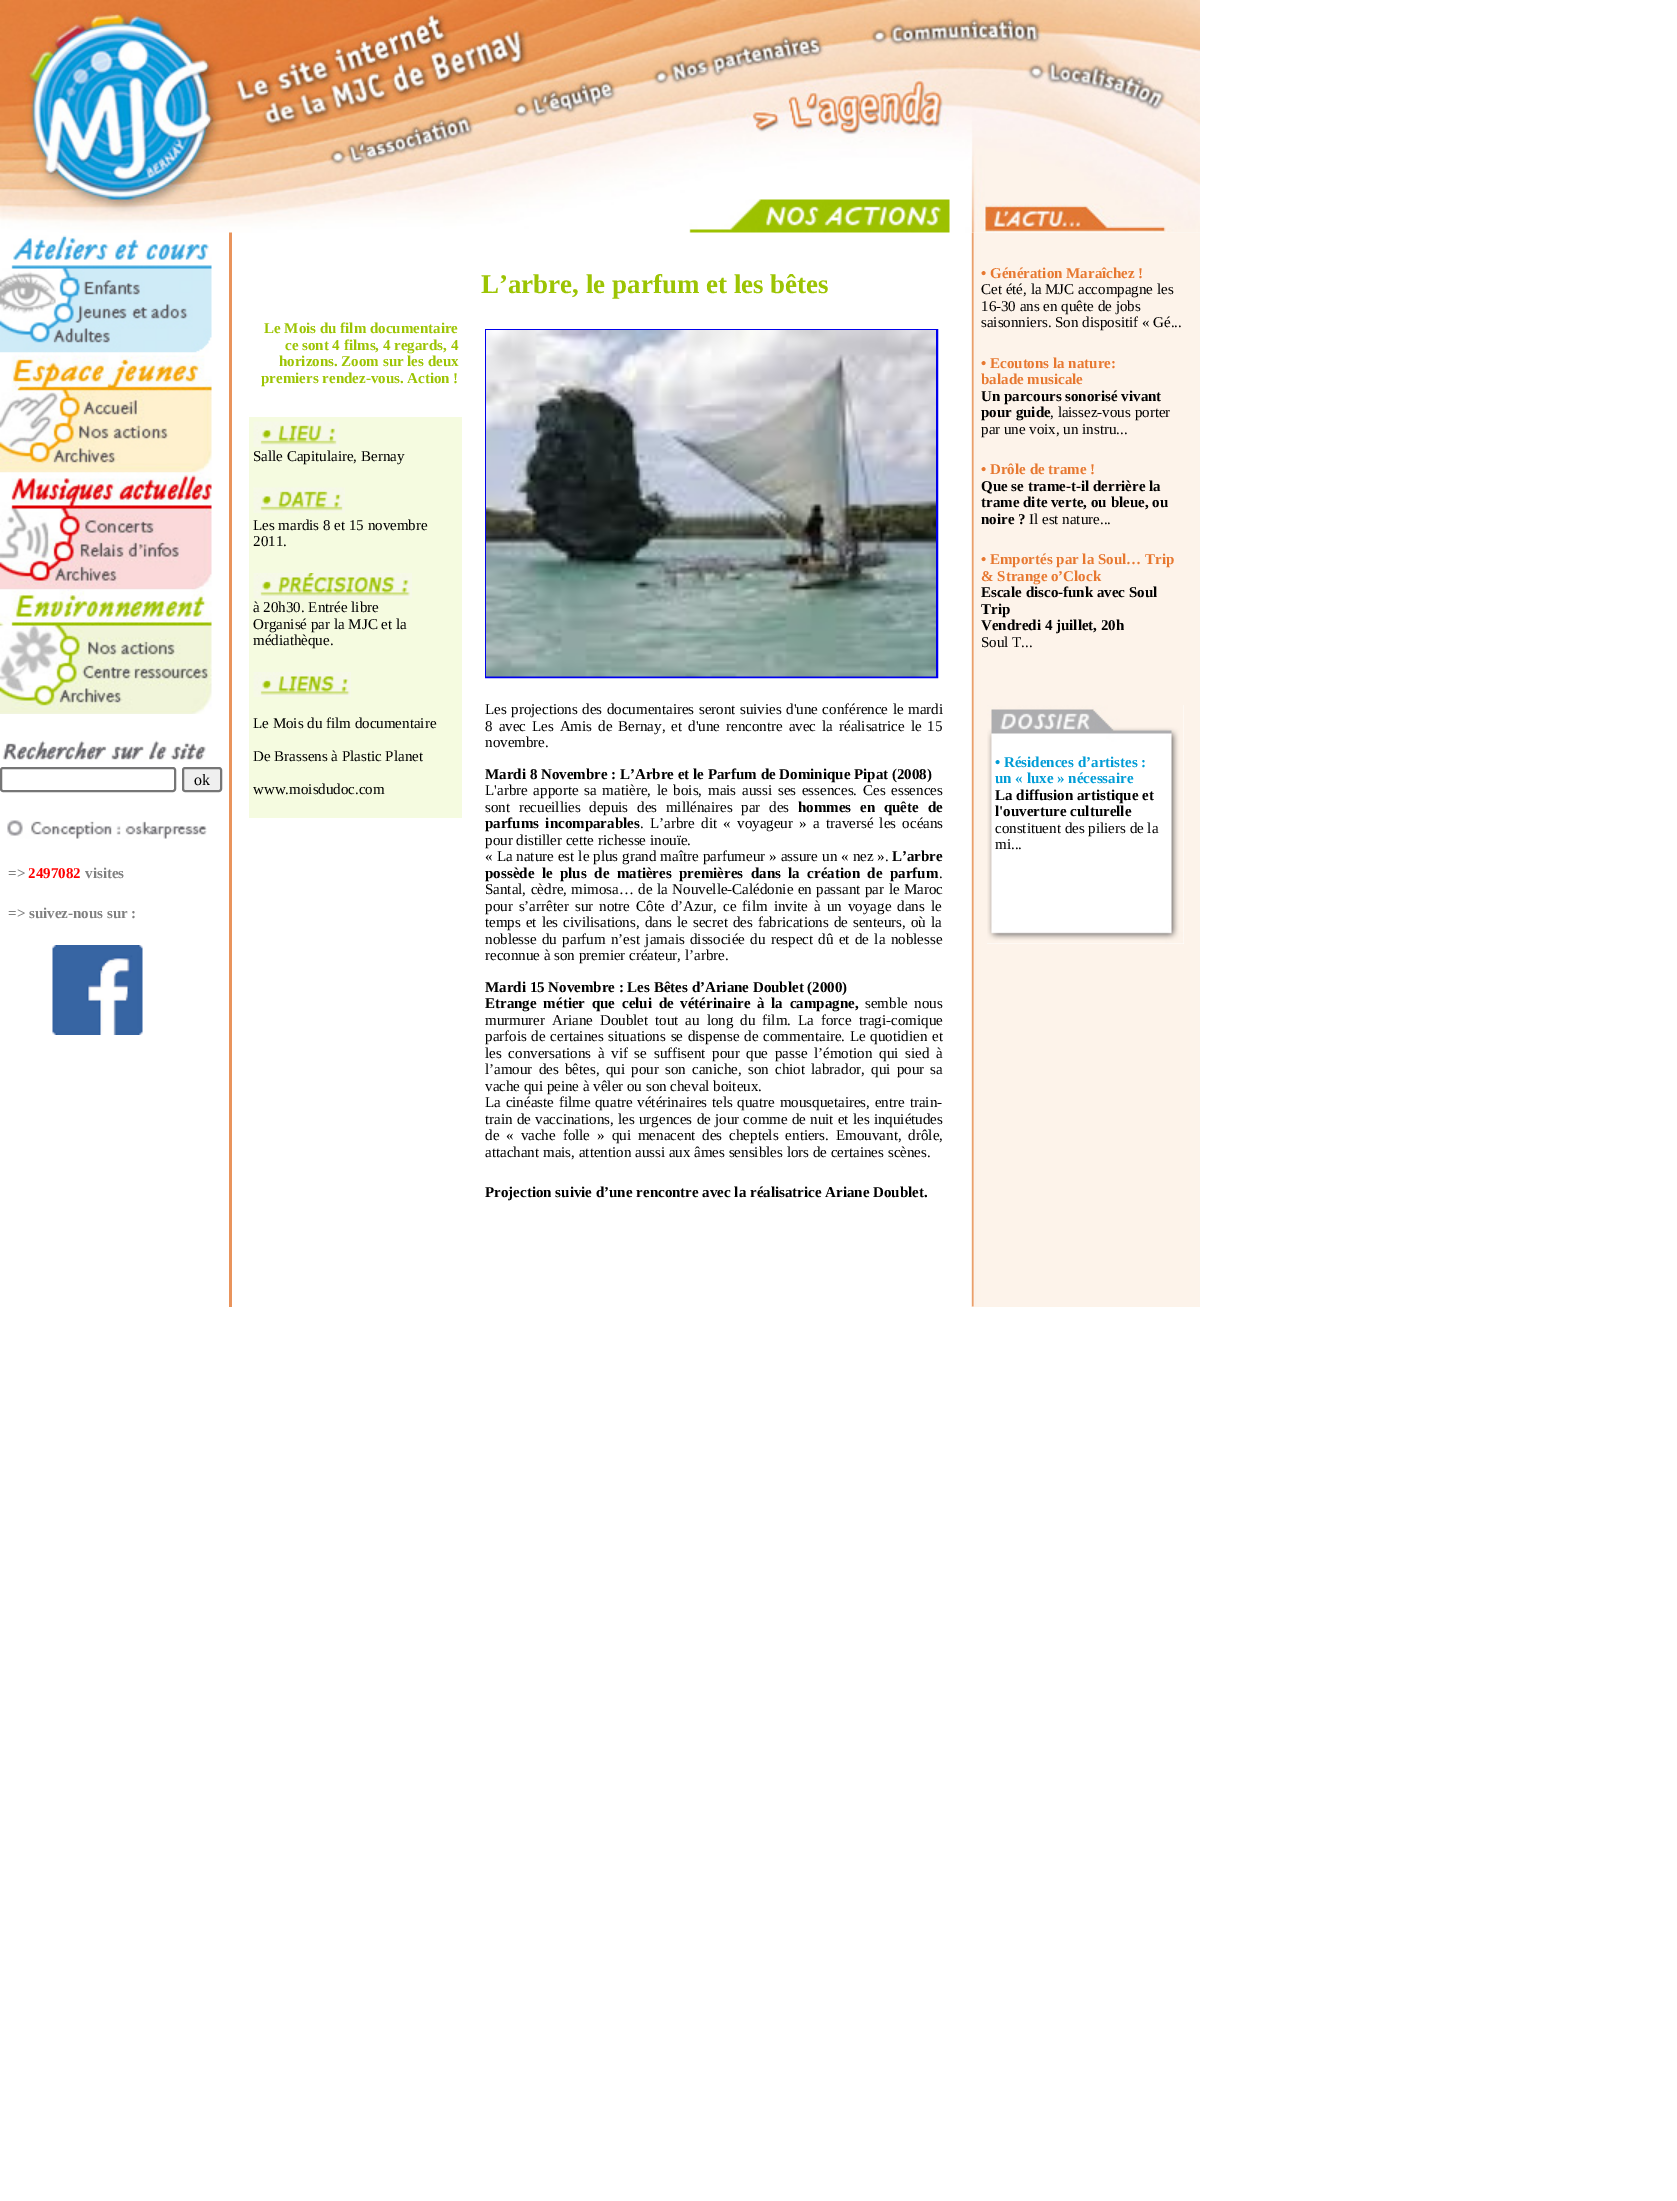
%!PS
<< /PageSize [1677 2201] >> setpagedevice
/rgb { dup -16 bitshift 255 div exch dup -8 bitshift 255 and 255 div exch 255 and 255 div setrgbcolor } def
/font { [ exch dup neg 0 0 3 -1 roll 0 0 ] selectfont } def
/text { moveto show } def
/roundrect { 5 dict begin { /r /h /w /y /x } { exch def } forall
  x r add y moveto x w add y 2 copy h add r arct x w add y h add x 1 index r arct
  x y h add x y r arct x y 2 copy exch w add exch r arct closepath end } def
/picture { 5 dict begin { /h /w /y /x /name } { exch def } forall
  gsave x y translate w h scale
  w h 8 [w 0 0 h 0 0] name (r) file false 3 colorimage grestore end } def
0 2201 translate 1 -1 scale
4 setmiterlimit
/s1 { /LiberationSerif-Regular 16 font 16#000000 rgb } def
/s2 { /LiberationSerif-Bold 15 font 16#808080 rgb } def
/s3 { /LiberationSerif-Bold 15 font 16#FF0000 rgb } def
/s4 { /LiberationSerif-Bold 15 font 16#9CC403 rgb } def
/s5 { /LiberationSerif-Regular 15 font 16#000000 rgb } def
/s6 { /LiberationSerif-Bold 27 font 16#9CC403 rgb } def
/s7 { /LiberationSerif-Bold 15 font 16#000000 rgb } def
/s8 { /LiberationSerif-Bold 15 font 16#E77830 rgb } def
/s9 { /LiberationSerif-Bold 15 font 16#009CD6 rgb } def
16#FFFFFF rgb
0 0 1677 2201 rectfill
16#E9945C rgb
229 232 3 1075 rectfill
16#FDF3EA rgb
971 1306 229 1 rectfill
(pic15.raw) 971 232 229 1075 picture
(pic1.raw) 0 0 1200 233 picture
(pic2.raw) 689 199 261 34 picture
(pic3.raw) 0 235 212 118 picture
(pic4.raw) 0 352 212 121 picture
(pic5.raw) 0 472 212 118 picture
(pic6.raw) 0 589 212 125 picture
(pic7.raw) 2 740 204 22 picture
16#767676 rgb
2 setlinewidth
1 768 174 23 2 roundrect stroke
16#EFEFEF rgb
183 768 38 23 2 roundrect gsave fill grestore
16#767676 rgb
stroke
s1
(ok) 194 785 text
(pic8.raw) 7 820 200 19 picture
s2
(=>) 8 878 text
s3
(2497082) 28 878 text
s2
(visites) 85 878 text
(=> suivez-nous sur :) 8 918 text
(pic9.raw) 52 945 91 90 picture
s4
(Le Mois du film documentaire) 264 333 text
(ce sont 4 films, 4 regards, 4) 285 350 text
(horizons. Zoom sur les deux) 279 366 text
(premiers rendez-vous. Action !) 261 383 text
16#F5FBE0 rgb
249 417 213 401 rectfill
(pic10.raw) 253 421 86 26 picture
s5
(Salle Capitulaire, Bernay) 253 461 text
(pic11.raw) 253 487 92 26 picture
(Les mardis 8 et 15 novembre) 253 530 text
(2011.) 253 546 text
(pic12.raw) 253 573 159 26 picture
(à 20h30. Entrée libre) 253 612 text
(Organisé par la MJC et la) 253 629 text
(médiathèque.) 253 645 text
(pic13.raw) 253 672 98 25 picture
(Le Mois du film documentaire) 253 728 text
(De Brassens à Plastic Planet) 253 761 text
(www.moisdudoc.com) 253 794 text
s6
(L’arbre, le parfum et les bêtes) 481 293 text
16#0000EE rgb
486 330 451 347 rectstroke
(pic14.raw) 486 330 450 347 picture
/LiberationSerif-Regular 15 font
16#000000 rgb
485 714 moveto 0.75 0 32 (Les projections des documentaires seront suivies d'une conférence le mardi) widthshow
485 731 moveto 2.25 0 32 (8 avec Les Amis de Bernay, et d'une rencontre avec la réalisatrice le 15) widthshow
(novembre.) 485 747 text
s7
(Mardi 8 Novembre : L’Arbre et le Parfum de Dominique Pipat \(2008\)) 485 779 text
/LiberationSerif-Regular 15 font
485 795 moveto 2 0 32 (L'arbre apporte sa matière, le bois, mais aussi ses essences. Ces essences) widthshow
485 812 moveto 5 0 32 (sont recueillies depuis des millénaires par des) widthshow
/LiberationSerif-Bold 15 font
798 812 moveto 5 0 32 (hommes en quête de) widthshow
485 828 moveto 2.5 0 32 (parfums incomparables) widthshow
/LiberationSerif-Regular 15 font
640 828 moveto 2.5 0 32 (. L’arbre dit « voyageur » a traversé les océans) widthshow
(pour distiller cette richesse inouïe.) 485 845 text
485 861 moveto 0.25 0 32 (« La nature est le plus grand maître parfumeur » assure un « nez ».) widthshow
s7
(L’arbre) 892 861 text
485 878 moveto 3.75 0 32 (possède le plus de matières premières dans la création de parfum) widthshow
s5
(.) 939 878 text
485 894 moveto 0.75 0 32 (Santal, cèdre, mimosa… de la Nouvelle-Calédonie en passant par le Maroc) widthshow
485 911 moveto 2.4 0 32 (pour s’arrêter sur notre Côte d’Azur, ce film invite à un voyage dans le) widthshow
485 927 moveto 1.25 0 32 (temps et les civilisations, dans le secret des fabrications de senteurs, où la) widthshow
485 944 moveto 1.6 0 32 (noblesse du parfum n’est jamais dissociée du respect dû et de la noblesse) widthshow
(reconnue à son premier créateur, l’arbre.) 485 960 text
s7
(Mardi 15 Novembre : Les Bêtes d’Ariane Doublet \(2000\)) 485 992 text
485 1008 moveto 3 0 32 (Etrange métier que celui de vétérinaire à la campagne,) widthshow
/LiberationSerif-Regular 15 font
865 1008 moveto 3 0 32 (semble nous) widthshow
485 1025 moveto 3.25 0 32 (murmurer Ariane Doublet tout au long du film. La force tragi-comique) widthshow
485 1041 moveto 1 0 32 (parfois de certaines situations se dispense de commentaire. Le quotidien et) widthshow
485 1058 moveto 3 0 32 (les conversations à vif se suffisent pour que passe l’émotion qui sied à) widthshow
485 1074 moveto 2.5 0 32 (l’amour des bêtes, qui pour son caniche, son chiot labrador, qui pour sa) widthshow
(vache qui peine à vêler ou son cheval boiteux.) 485 1091 text
485 1107 moveto 1 0 32 (La cinéaste filme quatre vétérinaires tels quatre mousquetaires, entre train-) widthshow
485 1124 moveto 0.5 0 32 (train de vaccinations, les urgences de jour comme de nuit et les inquiétudes) widthshow
485 1140 moveto 3.25 0 32 (de « vache folle » qui menacent des cheptels entiers. Emouvant, drôle,) widthshow
(attachant mais, attention aussi aux âmes sensibles lors de certaines scènes.) 485 1157 text
s7
(Projection suivie d’une rencontre avec la réalisatrice Ariane Doublet.) 485 1197 text
s8
(• Génération Maraîchez !) 981 278 text
s5
(Cet été, la MJC accompagne les) 981 294 text
(16-30 ans en quête de jobs) 981 311 text
(saisonniers. Son dispositif « Gé...) 981 327 text
s8
(• Ecoutons la nature:) 981 368 text
(balade musicale) 981 384 text
s7
(Un parcours sonorisé vivant) 981 401 text
(pour guide) 981 417 text
s5
(, laissez-vous porter) 1050 417 text
(par une voix, un instru...) 981 434 text
s8
(• Drôle de trame !) 981 474 text
s7
(Que se trame-t-il derrière la) 981 491 text
(trame dite verte, ou bleue, ou) 981 507 text
(noire ?) 981 524 text
s5
(Il est nature...) 1029 524 text
s8
(• Emportés par la Soul… Trip) 981 564 text
(& Strange o’Clock) 981 581 text
s7
(Escale disco-funk avec Soul) 981 597 text
(Trip) 981 614 text
(Vendredi 4 juillet, 20h) 981 630 text
s5
(Soul T...) 981 647 text
16#FFFFFF rgb
987 705 197 239 rectfill
(pic16.raw) 987 705 197 239 picture
s9
(• Résidences d’artistes :) 995 767 text
(un « luxe » nécessaire) 995 783 text
s7
(La diffusion artistique et) 995 800 text
(l'ouverture culturelle) 995 816 text
s5
(constituent des piliers de la) 995 833 text
(mi...) 995 849 text
showpage
